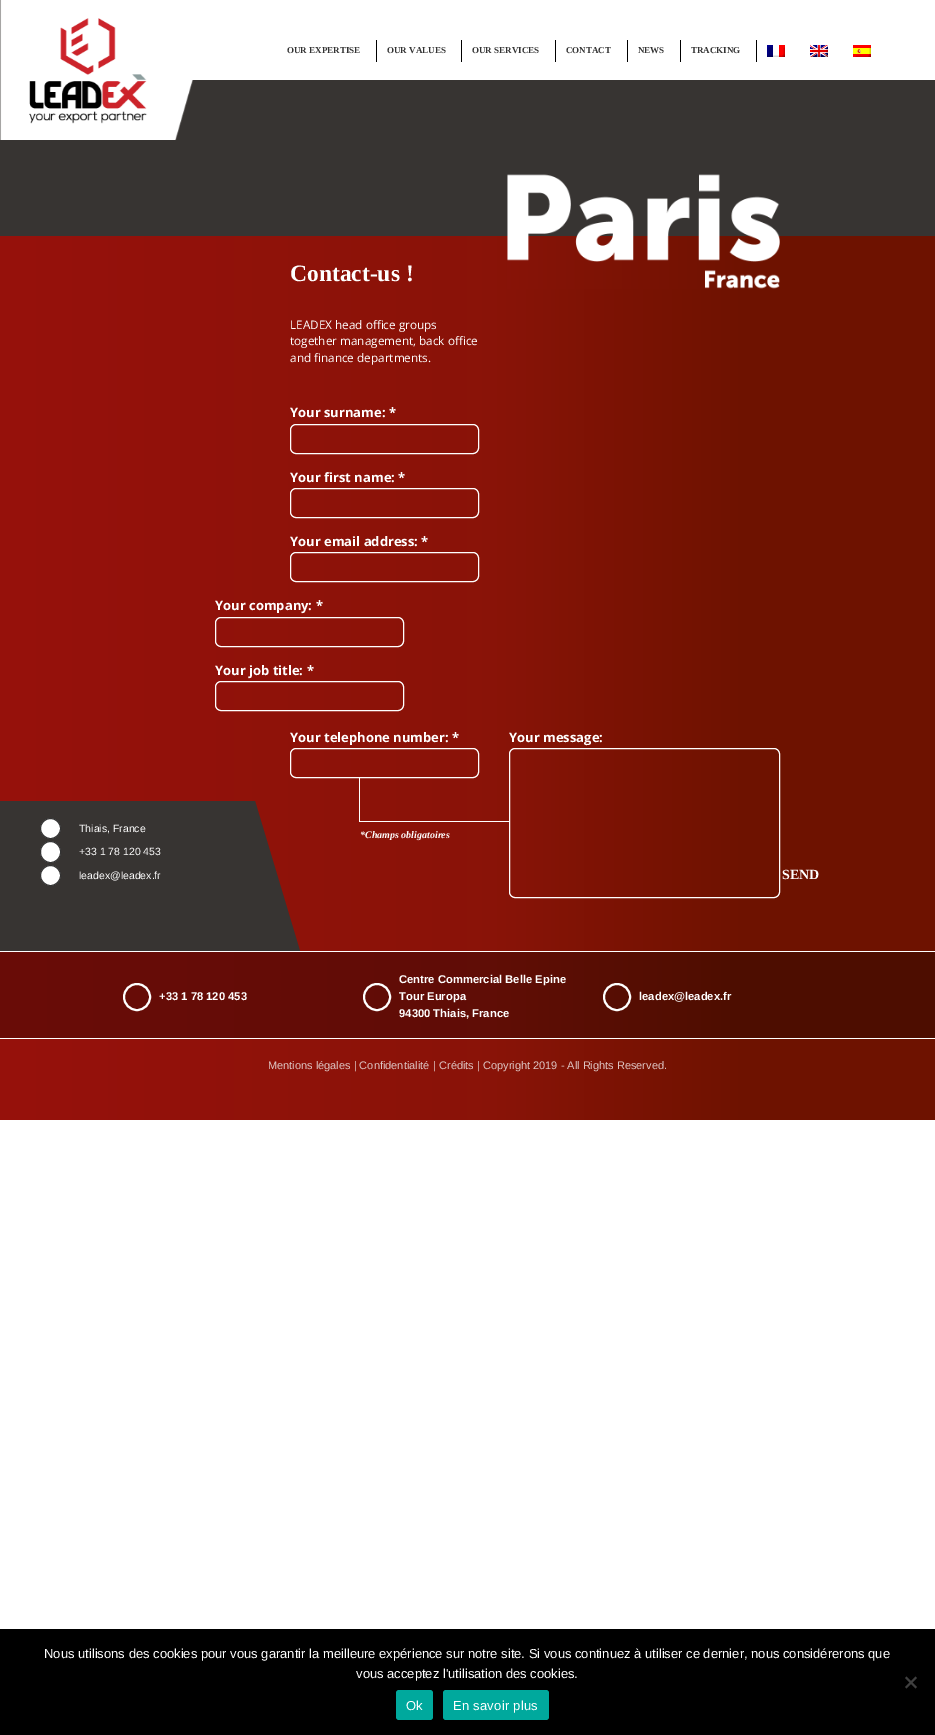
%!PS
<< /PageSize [935 1735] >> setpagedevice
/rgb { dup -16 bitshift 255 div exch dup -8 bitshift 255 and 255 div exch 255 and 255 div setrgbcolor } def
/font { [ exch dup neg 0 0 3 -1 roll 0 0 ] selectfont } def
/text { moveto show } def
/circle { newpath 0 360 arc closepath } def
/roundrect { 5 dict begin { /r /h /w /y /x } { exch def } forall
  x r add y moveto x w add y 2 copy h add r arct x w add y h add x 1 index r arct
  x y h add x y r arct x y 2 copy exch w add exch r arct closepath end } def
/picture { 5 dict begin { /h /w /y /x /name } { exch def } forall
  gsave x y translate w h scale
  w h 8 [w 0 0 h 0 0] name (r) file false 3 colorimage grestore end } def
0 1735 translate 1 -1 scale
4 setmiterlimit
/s1 { /LiberationSerif-Bold 9 font 16#333333 rgb } def
/s2 { /LiberationSans-Regular 10.5 font 16#FFFFFF rgb } def
/s3 { /LiberationSerif-Bold 23.5 font 16#FFFFFF rgb } def
/s4 { /OpenSans-Regular 11.75 font 16#FFFFFF rgb } def
/s5 { /OpenSans-Bold 13 font 16#FFFFFF rgb } def
/s6 { /LiberationSerif-BoldItalic 10 font 16#FFFFFF rgb } def
/s7 { /LiberationSerif-Bold 14 font 16#FFFFFF rgb } def
/s8 { /LiberationSans-Bold 11.25 font 16#FFFFFF rgb } def
/s9 { /LiberationSans-Regular 11 font 16#DEC5C3 rgb } def
/s10 { /LiberationSans-Regular 13 font 16#FFFFFF rgb } def
16#FFFFFF rgb
0 0 935 1735 rectfill
16#373432 rgb
0 0 935 236 rectfill
(pic1.raw) 0 0 194 140 picture
16#FFFFFF rgb
192 0 743 80 rectfill
16#000000 rgb
376 40 1 22 rectfill
s1
(OUR EXPERTISE) 287 53 text
16#000000 rgb
461 40 1 22 rectfill
s1
(OUR VALUES) 387 53 text
16#000000 rgb
555 40 1 22 rectfill
s1
(OUR SERVICES) 472 53 text
16#000000 rgb
627 40 1 22 rectfill
s1
(CONTACT) 566 53 text
16#000000 rgb
680 40 1 22 rectfill
s1
(NEWS) 638 53 text
16#000000 rgb
756 40 1 22 rectfill
s1
(TRACKING) 691 53 text
(pic2.raw) 767 45 18 12 picture
(pic3.raw) 810 45 18 12 picture
(pic4.raw) 853 45 18 12 picture
gsave 0 236 moveto 935 236 lineto 935 951 lineto 0 951 lineto closepath clip newpath
<< /ShadingType 2 /ColorSpace /DeviceRGB /Coords [0 594 935 594] /Extend [true true] /Function << /FunctionType 3 /Domain [0 1] /Functions [<< /FunctionType 2 /Domain [0 1] /C0 [0.592 0.067 0.047] /C1 [0.537 0.075 0.031] /N 1 >> << /FunctionType 2 /Domain [0 1] /C0 [0.537 0.075 0.031] /C1 [0.431 0.071 0] /N 1 >> << /FunctionType 2 /Domain [0 1] /C0 [0.431 0.071 0] /C1 [0.431 0.071 0] /N 1 >>] /Bounds [0.53 0.8] /Encode [0 1 0 1 0 1] >> >> shfill grestore
(pic5.raw) 507 174 273 115 picture
16#373432 rgb
300 951 moveto 0 951 lineto 0 801 lineto 255 801 lineto closepath fill
16#FFFFFF rgb
50.5 828.5 10 circle gsave fill grestore
16#333333 rgb
stroke
s2
(Thiais, France) 79 832 text
40.5 841.5 20 21 10 roundrect gsave fill grestore
16#333333 rgb
stroke
s2
(+33 1 78 120 453) 79 855 text
50.5 875.5 10 circle gsave fill grestore
16#333333 rgb
stroke
s2
(leadex@leadex.fr) 79 879 text
s3
(Contact-us !) 290 281 text
s4
(LEADEX head office groups) 290 329 text
(together management, back office) 290 345 text
(and finance departments.) 290 362 text
s5
(Your surname: *) 290 417 text
290.5 424.5 188 29 5.5 roundrect stroke
(Your first name: *) 290 482 text
290.5 488.5 188 29 5.5 roundrect stroke
(Your email address: *) 290 546 text
290.5 552.5 188 29 5.5 roundrect stroke
(Your company: *) 215 610 text
215.5 617.5 188 29 5.5 roundrect stroke
(Your job title: *) 215 675 text
215.5 681.5 188 29 5.5 roundrect stroke
(Your telephone number: *) 290 742 text
290.5 748.5 188 29 5.5 roundrect stroke
(Your message:) 509 742 text
359 821 150 1 rectfill
359 777 1 45 rectfill
s6
(*Champs obligatoires) 360 838 text
509.5 748.5 270 149 5.5 roundrect stroke
s7
(SEND) 782 879 text
gsave 0 1039 moveto 935 1039 lineto 935 1120 lineto 0 1120 lineto closepath clip newpath
<< /ShadingType 2 /ColorSpace /DeviceRGB /Coords [0 1036 935 1036] /Extend [true true] /Function << /FunctionType 3 /Domain [0 1] /Functions [<< /FunctionType 2 /Domain [0 1] /C0 [0.592 0.067 0.047] /C1 [0.537 0.075 0.031] /N 1 >> << /FunctionType 2 /Domain [0 1] /C0 [0.537 0.075 0.031] /C1 [0.431 0.071 0] /N 1 >> << /FunctionType 2 /Domain [0 1] /C0 [0.431 0.071 0] /C1 [0.431 0.071 0] /N 1 >>] /Bounds [0.53 0.8] /Encode [0 1 0 1 0 1] >> >> shfill grestore
gsave 0 952 moveto 935 952 lineto 935 1038 lineto 0 1038 lineto closepath clip newpath
<< /ShadingType 2 /ColorSpace /DeviceRGB /Coords [0 1036 935 1036] /Extend [true true] /Function << /FunctionType 3 /Domain [0 1] /Functions [<< /FunctionType 2 /Domain [0 1] /C0 [0.416 0.047 0.031] /C1 [0.376 0.051 0.024] /N 1 >> << /FunctionType 2 /Domain [0 1] /C0 [0.376 0.051 0.024] /C1 [0.302 0.051 0] /N 1 >> << /FunctionType 2 /Domain [0 1] /C0 [0.302 0.051 0] /C1 [0.302 0.051 0] /N 1 >>] /Bounds [0.53 0.8] /Encode [0 1 0 1 0 1] >> >> shfill grestore
2 setlinewidth
137 997 13 circle stroke
s8
(+33 1 78 120 453) 159 1000 text
377 997 13 circle stroke
(Centre Commercial Belle Epine) 399 983 text
(Tour Europa) 399 1000 text
(94300 Thiais, France) 399 1017 text
617 997 13 circle stroke
(leadex@leadex.fr) 639 1000 text
s9
(Mentions légales | Confidentialité) 268 1069 text
(| Crédits) 433 1069 text
(| Copyright 2019 - All Rights Reserved.) 477 1069 text
16#000000 rgb
0 1629 935 106 rectfill
s10
(Nous utilisons des cookies pour vous garantir la meilleure expérience sur notre site. Si vous continuez à utiliser ce dernier, nous considérerons que) 44 1658 text
(vous acceptez l'utilisation des cookies.) 356 1678 text
16#404040 rgb
915.5 1676.5 moveto 917 1678 lineto 906.5 1688.5 lineto 905 1687 lineto closepath fill
905 1678 moveto 906.5 1676.5 lineto 917 1687 lineto 915.5 1688.5 lineto closepath fill
16#00A99D rgb
396 1690 37 30 3 roundrect fill
16#FFFFFF rgb
406 1710 moveto 0.25 0 (Ok) ashow
16#00A99D rgb
443 1690 106 30 3 roundrect fill
16#FFFFFF rgb
453 1710 moveto 0.25 0 (En savoir plus) ashow
showpage
